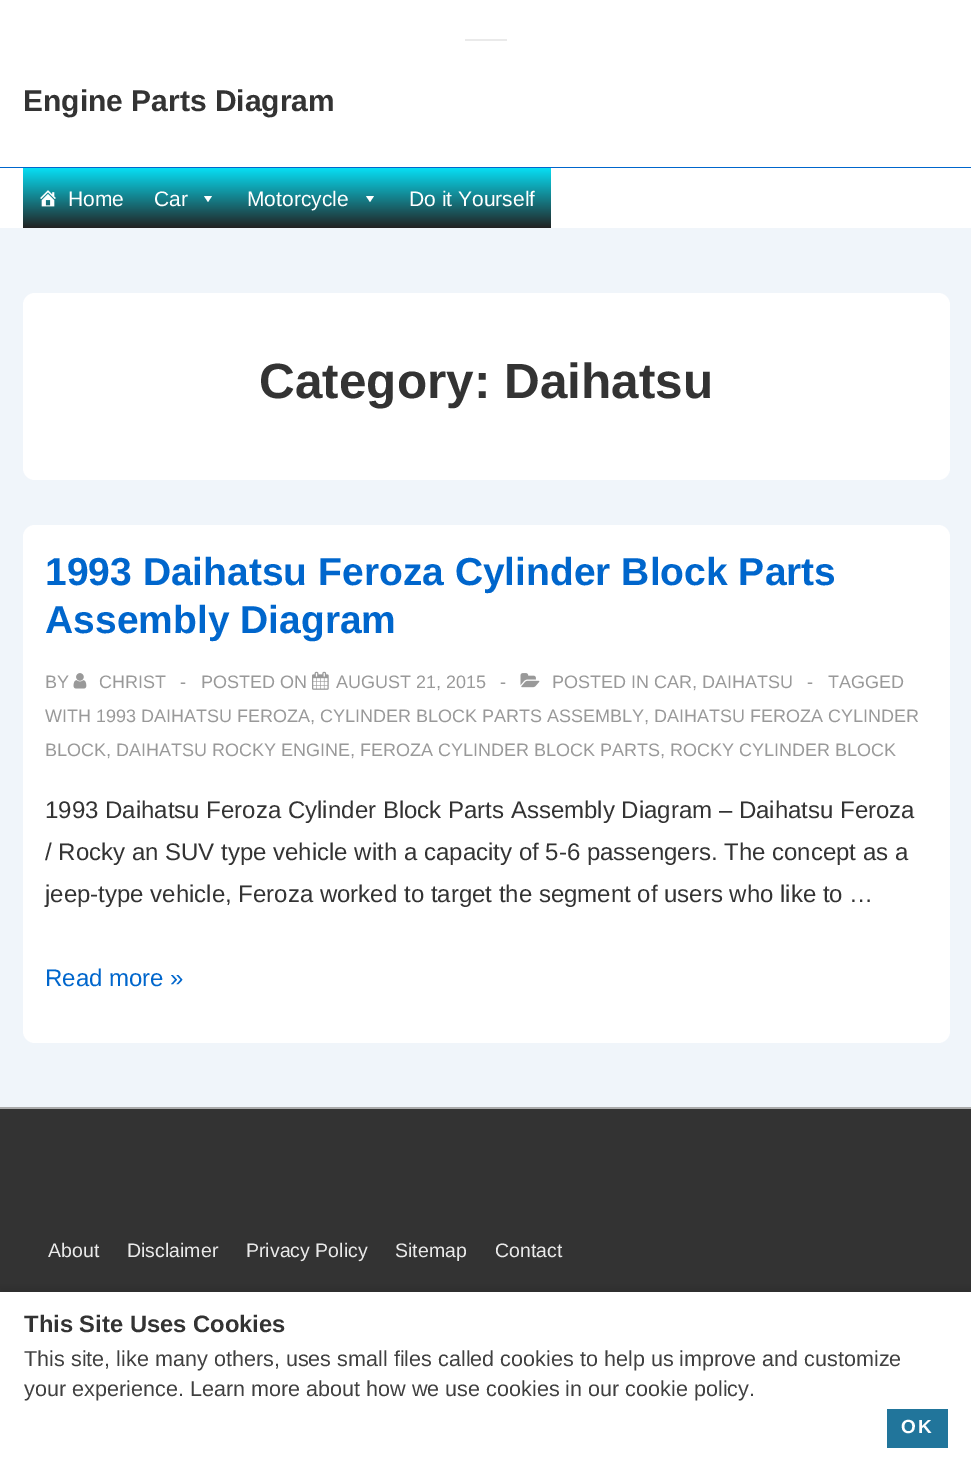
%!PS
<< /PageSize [971 1465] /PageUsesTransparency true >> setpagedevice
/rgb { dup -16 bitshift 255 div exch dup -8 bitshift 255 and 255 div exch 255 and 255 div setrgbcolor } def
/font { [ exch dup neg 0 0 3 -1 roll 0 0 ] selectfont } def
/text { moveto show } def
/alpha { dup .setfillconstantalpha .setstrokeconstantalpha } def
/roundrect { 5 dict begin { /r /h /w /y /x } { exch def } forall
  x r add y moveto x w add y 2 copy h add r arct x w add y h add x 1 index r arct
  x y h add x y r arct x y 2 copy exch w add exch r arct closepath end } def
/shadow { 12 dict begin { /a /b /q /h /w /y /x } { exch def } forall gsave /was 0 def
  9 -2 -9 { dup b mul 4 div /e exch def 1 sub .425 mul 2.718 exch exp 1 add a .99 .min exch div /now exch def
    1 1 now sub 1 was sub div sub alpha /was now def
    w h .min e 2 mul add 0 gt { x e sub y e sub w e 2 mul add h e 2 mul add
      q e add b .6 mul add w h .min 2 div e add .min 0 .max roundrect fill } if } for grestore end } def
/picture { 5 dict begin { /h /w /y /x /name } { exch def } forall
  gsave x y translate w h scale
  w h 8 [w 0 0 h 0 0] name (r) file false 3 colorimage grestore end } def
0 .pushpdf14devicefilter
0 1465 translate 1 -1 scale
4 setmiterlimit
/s1 { /LiberationSans-Bold 30 font 16#333333 rgb } def
/s2 { /LiberationSans-Regular 21 font 16#FFFFFF rgb } def
/s3 { /LiberationSans-Bold 49.5 font 16#333333 rgb } def
/s4 { /LiberationSans-Bold 39 font 16#0066CC rgb } def
/s5 { /LiberationSans-Regular 18 font 16#999999 rgb } def
/s6 { /LiberationSans-Regular 24 font 16#333333 rgb } def
/s7 { /LiberationSans-Regular 24 font 16#0066CC rgb } def
/s8 { /LiberationSans-Regular 19.5 font 16#EAEAEA rgb } def
/s9 { /LiberationSans-Bold 23.75 font 16#333333 rgb } def
/s10 { /LiberationSans-Regular 21.6 font 16#404040 rgb } def
16#F0F5FA rgb
0 0 971 1465 rectfill
16#FFFFFF rgb
0 0 971 167 rectfill
16#EAEAEA rgb
465 39 42 2 rectfill
16#0066CC rgb
0 167 971 1 rectfill
s1
(Engine Parts Diagram) 23 111 text
16#FFFFFF rgb
0 168 971 60 rectfill
gsave 23 168 moveto 551 168 lineto 551 228 lineto 23 228 lineto closepath clip newpath
<< /ShadingType 2 /ColorSpace /DeviceRGB /Coords [287 168 287 228] /Extend [true true] /Function << /FunctionType 2 /Domain [0 1] /C0 [0.027 0.871 0.957] /C1 [0.133 0.133 0.133] /N 1 >> >> shfill grestore
(pic1.raw) 40 190 16 17 picture
s2
(Home) 68 206 text
(Car) 154 206 text
212 196 moveto 208 202 lineto 204 196 lineto closepath fill
(Motorcycle) 247 206 text
374 196 moveto 370 202 lineto 366 196 lineto closepath fill
(Do it Yourself) 409 206 text
23 293 927 187 12 roundrect fill
s3
(Category: Daihatsu) 259 398 text
16#FFFFFF rgb
23 525 927 518 12 roundrect fill
s4
(1993 Daihatsu Feroza Cylinder Block Parts) 45 585 text
(Assembly Diagram) 45 633 text
s5
(BY) 45 688 text
(pic2.raw) 73 673 14 16 picture
(CHRIST) 99 688 text
(-) 180 688 text
(POSTED ON) 201 688 text
(pic3.raw) 312 671 17 19 picture
(AUGUST 21, 2015) 336 688 text
(-) 500 688 text
(pic4.raw) 520 673 20 15 picture
(POSTED IN CAR, DAIHATSU) 552 688 text
(-) 807 688 text
(TAGGED) 828 688 text
(WITH 1993 DAIHATSU FEROZA, CYLINDER BLOCK PARTS ASSEMBLY, DAIHATSU FEROZA CYLINDER) 45 722 text
(BLOCK, DAIHATSU ROCKY ENGINE, FEROZA CYLINDER BLOCK PARTS, ROCKY CYLINDER BLOCK) 45 756 text
s6
(1993 Daihatsu Feroza Cylinder Block Parts Assembly Diagram – Daihatsu Feroza) 45 818 text
(/ Rocky an SUV type vehicle with a capacity of 5-6 passengers. The concept as a) 45 860 text
(jeep-type vehicle, Feroza worked to target the segment of users who like to …) 45 902 text
s7
(Read more ») 45 986 text
16#333333 rgb
0 1109 971 183 rectfill
16#AAAAAA rgb
0 1107 971 2 rectfill
s8
(About) 48 1257 text
(Disclaimer) 127 1257 text
(Privacy Policy) 246 1257 text
(Sitemap) 395 1257 text
(Contact) 495 1257 text
16#000000 rgb
0 1287 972 174 0 4 0.1 shadow
16#FFFFFF rgb
0 1292 971 173 rectfill
s9
(This Site Uses Cookies) 24 1332 text
s10
(This site, like many others, uses small files called cookies to help us improve and customize) 24 1366 text
(your experience. Learn more about how we use cookies in our cookie policy.) 24 1396 text
16#21759B rgb
887 1409 61 39 rectfill
/LiberationSans-Bold 19 font
16#FFFFFF rgb
901 1433 moveto 2 0 (OK) ashow
.poppdf14devicefilter showpage
